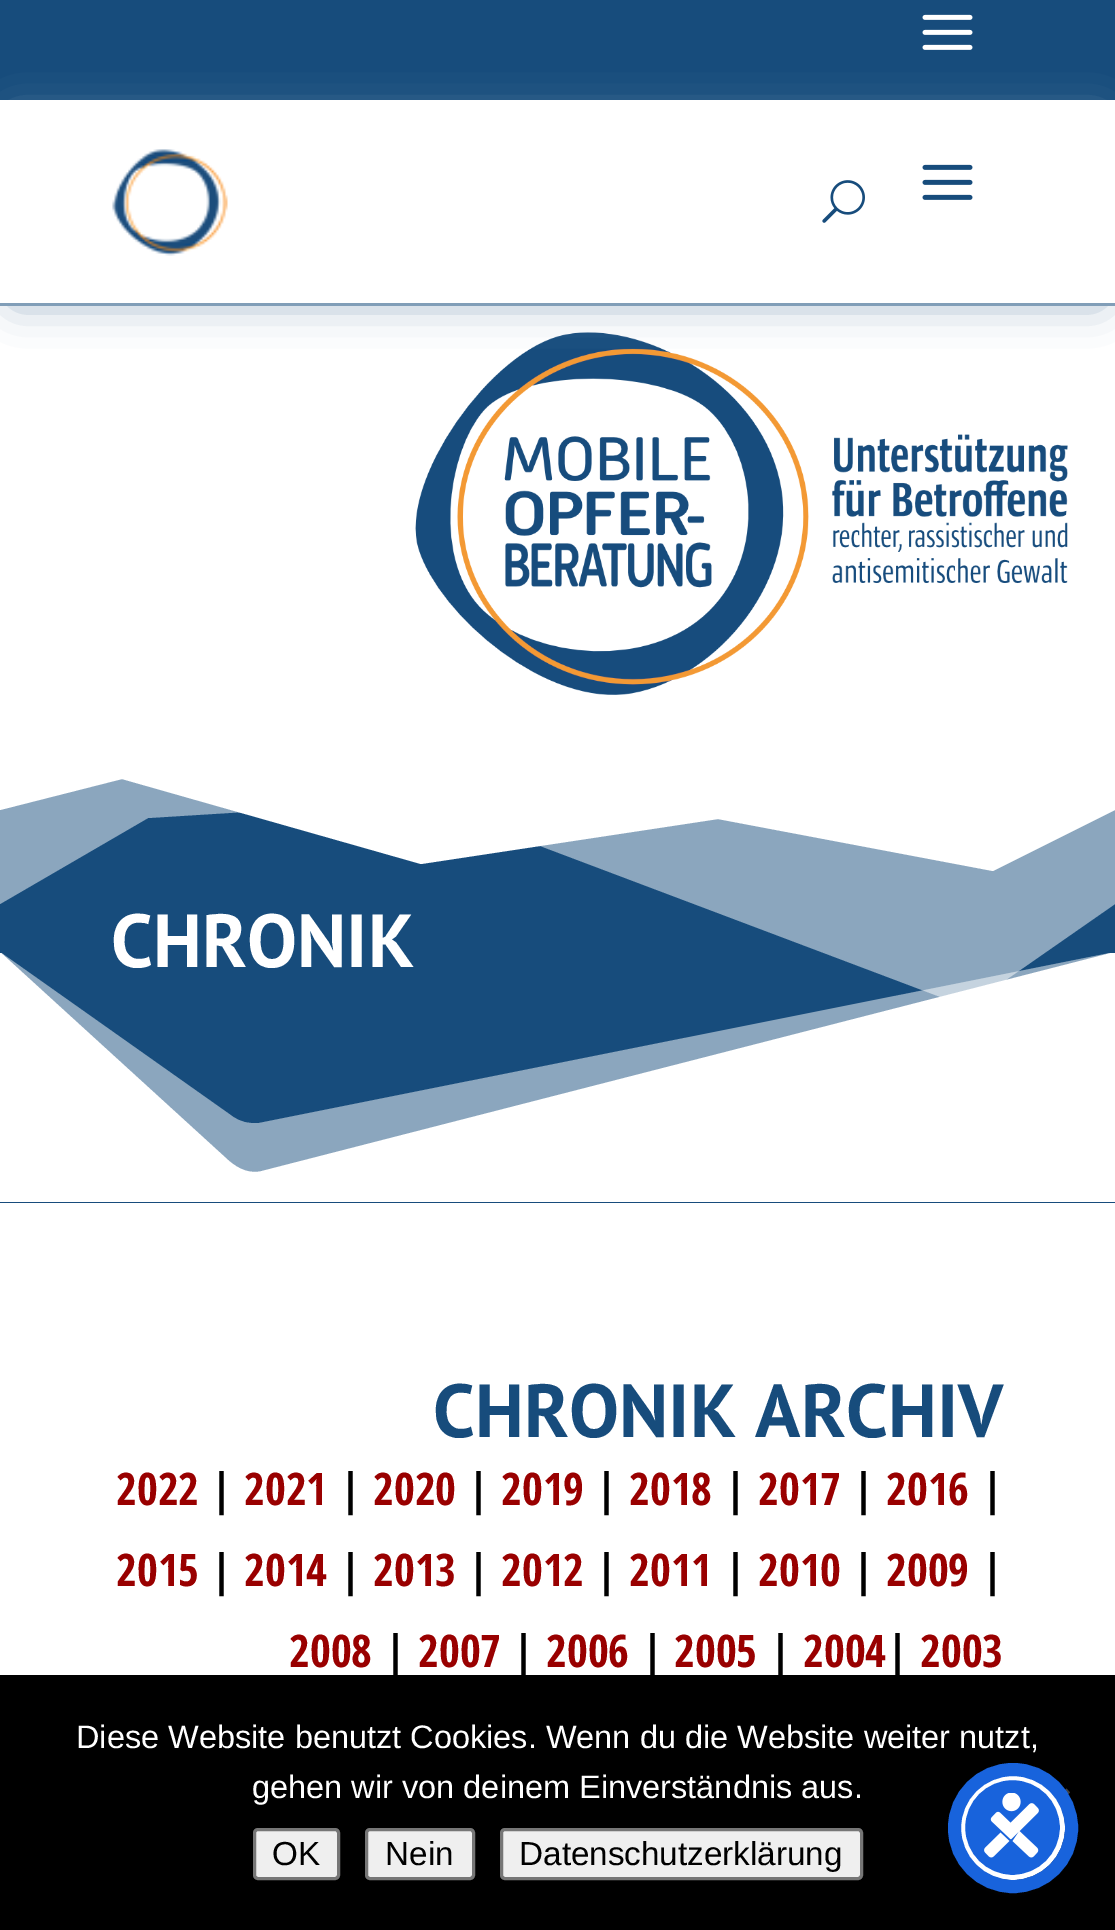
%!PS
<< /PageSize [1115 1930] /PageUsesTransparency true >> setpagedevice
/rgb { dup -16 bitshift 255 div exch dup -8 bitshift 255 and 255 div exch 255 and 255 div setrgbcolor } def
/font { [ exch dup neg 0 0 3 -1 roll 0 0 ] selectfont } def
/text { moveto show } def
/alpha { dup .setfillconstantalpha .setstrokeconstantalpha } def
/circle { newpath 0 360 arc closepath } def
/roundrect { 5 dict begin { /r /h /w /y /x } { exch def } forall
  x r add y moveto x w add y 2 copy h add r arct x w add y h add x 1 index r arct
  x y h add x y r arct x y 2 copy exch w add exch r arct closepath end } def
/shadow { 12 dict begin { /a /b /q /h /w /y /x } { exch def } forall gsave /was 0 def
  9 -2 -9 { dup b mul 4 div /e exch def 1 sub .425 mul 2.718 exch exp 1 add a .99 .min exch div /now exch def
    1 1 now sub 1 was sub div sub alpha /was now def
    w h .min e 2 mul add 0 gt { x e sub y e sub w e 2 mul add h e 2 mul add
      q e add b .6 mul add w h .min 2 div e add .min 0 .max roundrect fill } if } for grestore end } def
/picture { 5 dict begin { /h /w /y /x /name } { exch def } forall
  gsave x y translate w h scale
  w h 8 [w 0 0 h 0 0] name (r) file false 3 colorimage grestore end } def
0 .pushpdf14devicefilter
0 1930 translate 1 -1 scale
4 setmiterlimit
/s1 { /PTSans-Bold 75 font 16#FFFFFF rgb } def
/s2 { /PTSans-Bold 75 font 16#174C7C rgb } def
/s3 { /OpenSansCondensed-Bold 45 font 16#990000 rgb } def
/s4 { /OpenSansCondensed-Bold 45 font 16#000000 rgb } def
/s5 { /LiberationSans-Regular 32.5 font 16#FFFFFF rgb } def
/s6 { /LiberationSans-Regular 33.25 font 16#000000 rgb } def
16#FFFFFF rgb
0 0 1115 1930 rectfill
16#174C7C rgb
0 0 1115 100 rectfill
(pic1.raw) 922 14 51 36 picture
(pic5.raw) 415 332 653 363 picture
gsave
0 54 moveto 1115 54 lineto 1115 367 lineto 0 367 lineto closepath 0 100 moveto 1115 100 lineto 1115 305 lineto 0 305 lineto closepath eoclip newpath
16#819EB8 rgb
15 123 1085 175 0 22.5 1 shadow
grestore
16#819EB8 rgb
0 303 1115 3 rectfill
(pic2.raw) 112 149 116 107 picture
(pic3.raw) 822 180 43 43 picture
(pic4.raw) 922 164 51 36 picture
16#174C7C rgb
0 812 1115 391 rectfill
gsave
0 703 1115 305 rectclip
16#8BA6BE rgb
1115 904 moveto 967 1007 lineto 421 801 lineto 148 818 lineto 0 904 lineto 0 702 lineto 1115 702 lineto closepath fill
16#FFFFFF rgb
1115 810 moveto 993 871 lineto 718 819 lineto 421 864 lineto 122 779 lineto 0 810 lineto 0 702 lineto 1115 702 lineto closepath fill
grestore
gsave
0 953 1115 250 rectclip
0.5 alpha
16#FFFFFF rgb
0 952 moveto 232 1116 lineto 240 1122 249 1124 259 1123 curveto 1115 952 lineto 1115 1202 lineto 0 1202 lineto closepath fill
1 alpha
0 952 moveto 228 1160 lineto 239 1170 251 1174 262 1171 curveto 1115 952 lineto 1115 1202 lineto 0 1202 lineto closepath fill
grestore
s1
(CHRONIK) 111 967 text
s2
(CHRONIK ARCHIV) 433 1437 text
s3
(2022) 116 1505 text
s4
(|) 210 1505 text
s3
(2021) 244 1505 text
s4
(|) 339 1505 text
s3
(2020) 373 1505 text
s4
(|) 467 1505 text
s3
(2019) 501 1505 text
s4
(|) 595 1505 text
s3
(2018) 629 1505 text
s4
(|) 724 1505 text
s3
(2017) 758 1505 text
s4
(|) 852 1505 text
s3
(2016) 886 1505 text
s4
(|) 981 1505 text
s3
(2015) 116 1586 text
s4
(|) 210 1586 text
s3
(2014) 244 1586 text
s4
(|) 339 1586 text
s3
(2013) 373 1586 text
s4
(|) 467 1586 text
s3
(2012) 501 1586 text
s4
(|) 595 1586 text
s3
(2011) 629 1586 text
s4
(|) 724 1586 text
s3
(2010) 758 1586 text
s4
(|) 852 1586 text
s3
(2009) 886 1586 text
s4
(|) 981 1586 text
s3
(2008) 289 1667 text
s4
(|) 384 1667 text
s3
(2007) 418 1667 text
s4
(|) 512 1667 text
s3
(2006) 546 1667 text
s4
(|) 641 1667 text
s3
(2005) 674 1667 text
s4
(|) 769 1667 text
s3
(2004) 803 1667 text
s4
(|) 886 1667 text
s3
(2003) 920 1667 text
16#000000 rgb
0 1675 1115 255 rectfill
s5
(Diese Website benutzt Cookies. Wenn du die Website weiter nutzt,) 76 1748 text
(gehen wir von deinem Einverständnis aus.) 252 1798 text
16#404040 rgb
1066.5 1788.5 moveto 1070 1792.5 lineto 1043.5 1819 lineto 1040 1815 lineto closepath fill
16#EFEFEF rgb
254.5 1829.5 84 49 3.5 roundrect gsave fill grestore
16#767676 rgb
3 setlinewidth
stroke
s6
(OK) 272 1865 text
16#EFEFEF rgb
366.5 1829.5 107 49 3.5 roundrect gsave fill grestore
16#767676 rgb
stroke
s6
(Nein) 385 1865 text
16#EFEFEF rgb
501.5 1829.5 360 49 3.5 roundrect gsave fill grestore
16#767676 rgb
stroke
s6
(Datenschutzerklärung) 519 1865 text
16#5D6494 rgb
960 1780 105 105 52.5 5 0.2 shadow
16#1863DC rgb
1012.5 1827.5 50 circle gsave fill grestore
16#FFFFFF rgb
5 setlinewidth
stroke
16#1863DC rgb
13 setlinewidth
1013 1828 58.5 circle stroke
(pic6.raw) 984 1793 55 65 picture
.poppdf14devicefilter showpage
